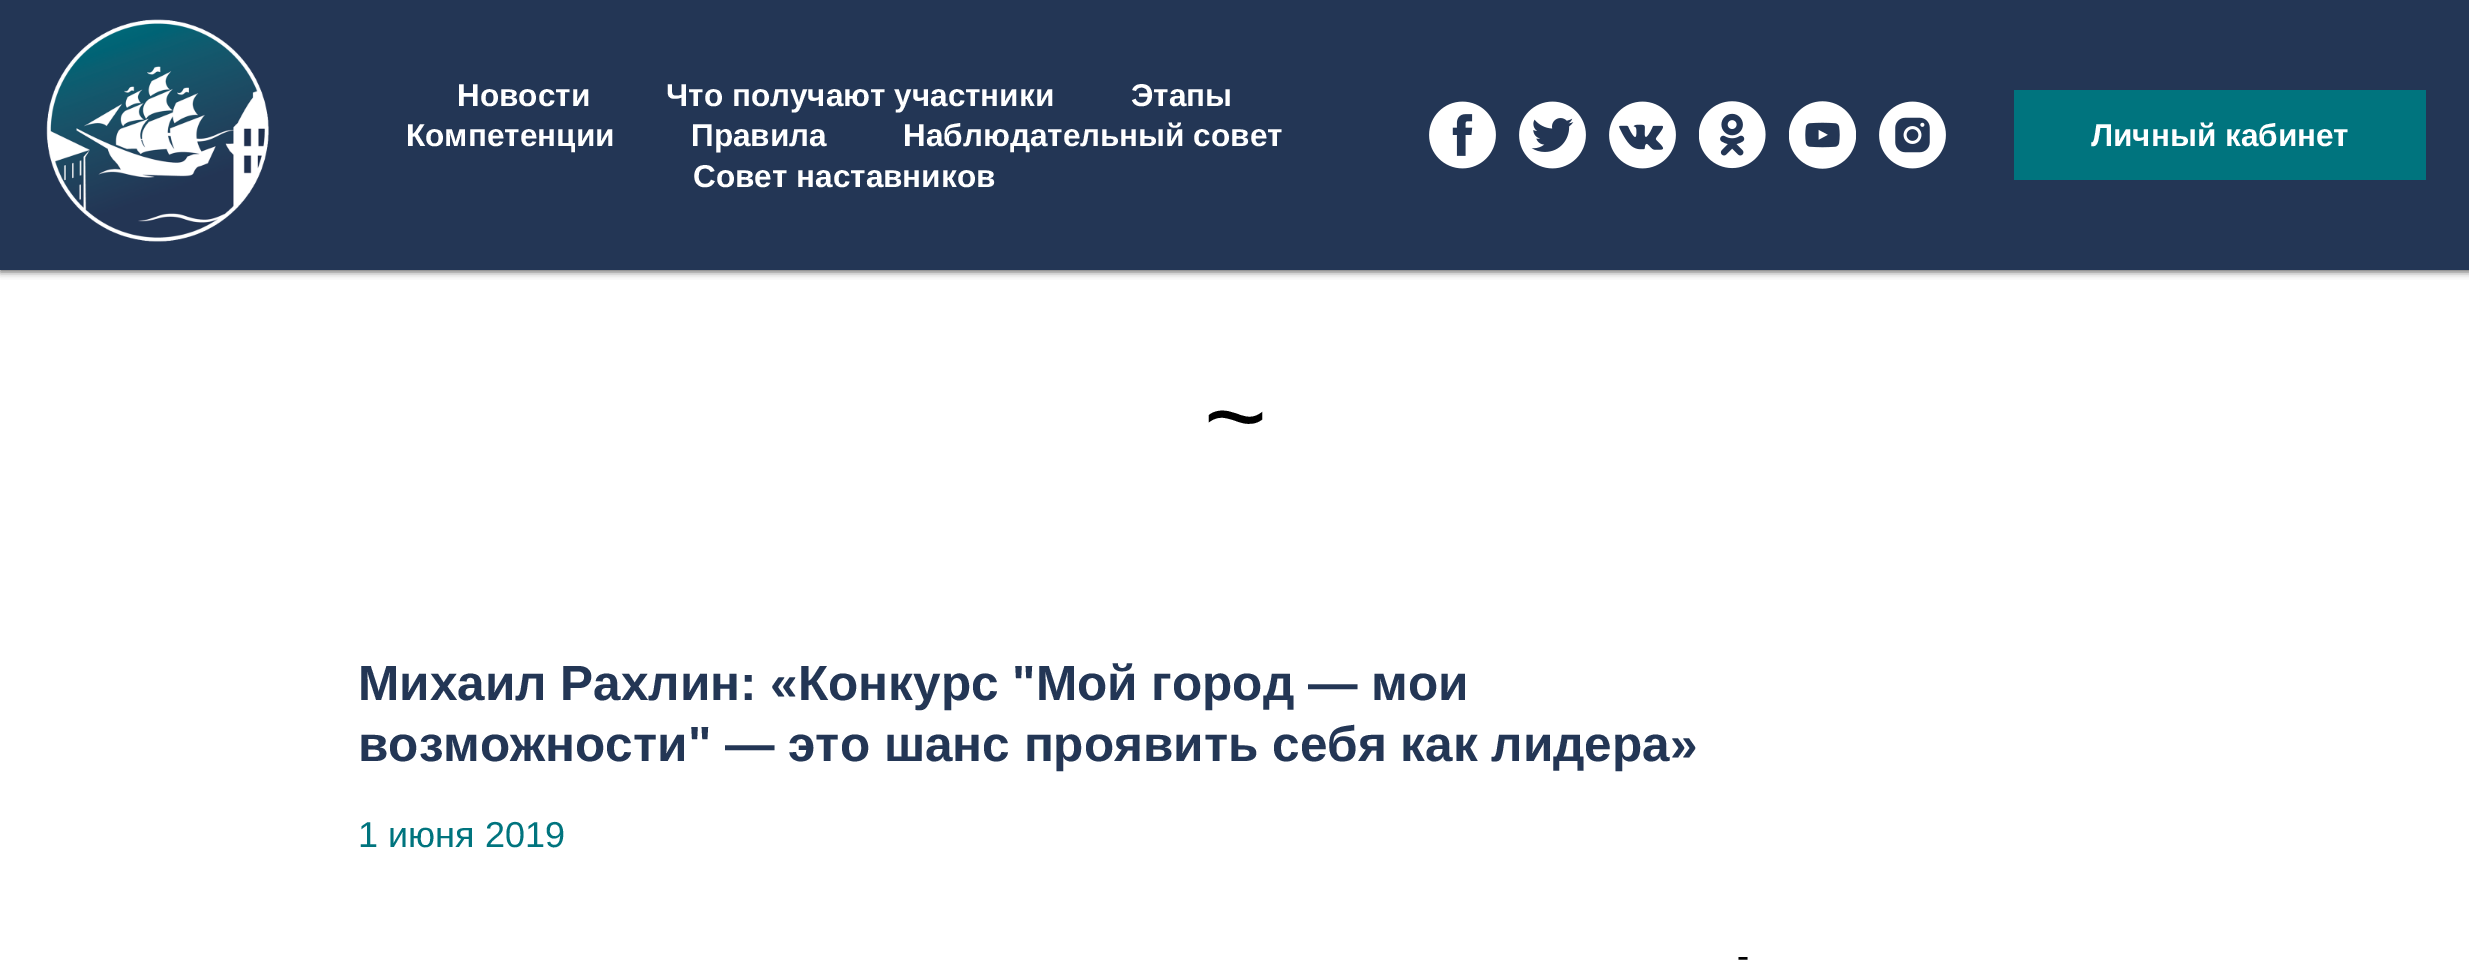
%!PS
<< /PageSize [2469 960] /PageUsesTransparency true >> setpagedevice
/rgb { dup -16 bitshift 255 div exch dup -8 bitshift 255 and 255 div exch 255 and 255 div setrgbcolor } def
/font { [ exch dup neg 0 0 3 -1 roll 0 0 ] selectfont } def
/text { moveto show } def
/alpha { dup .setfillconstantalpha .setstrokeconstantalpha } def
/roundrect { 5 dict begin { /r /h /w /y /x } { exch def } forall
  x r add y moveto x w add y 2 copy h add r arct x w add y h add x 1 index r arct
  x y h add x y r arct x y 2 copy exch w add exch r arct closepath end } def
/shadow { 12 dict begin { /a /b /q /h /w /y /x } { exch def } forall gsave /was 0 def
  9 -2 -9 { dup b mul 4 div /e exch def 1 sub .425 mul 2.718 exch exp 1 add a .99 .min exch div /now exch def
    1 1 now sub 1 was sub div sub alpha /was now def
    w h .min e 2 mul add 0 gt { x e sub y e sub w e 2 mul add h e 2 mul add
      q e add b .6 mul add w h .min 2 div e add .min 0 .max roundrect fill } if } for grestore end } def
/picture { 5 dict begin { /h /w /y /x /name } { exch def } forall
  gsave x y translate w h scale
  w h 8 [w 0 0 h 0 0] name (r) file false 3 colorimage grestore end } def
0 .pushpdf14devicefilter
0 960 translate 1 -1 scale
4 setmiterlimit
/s1 { /LiberationSans-Bold 31.5 font 16#FFFFFF rgb } def
/s2 { /LiberationSans-Regular 108 font 16#000000 rgb } def
/s3 { /LiberationSans-Bold 49.5 font 16#233655 rgb } def
/s4 { /LiberationSans-Regular 36 font 16#00747E rgb } def
/s5 { /LiberationSans-Regular 36 font 16#000000 rgb } def
16#FFFFFF rgb
0 0 2469 960 rectfill
16#000000 rgb
0 2 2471 270 0 3.5 0.6 shadow
16#233655 rgb
0 0 2469 270 rectfill
(pic1.raw) 46 19 223 223 picture
s1
(Новости) 457 106 text
(Что получают участники) 666 106 text
(Этапы) 1131 106 text
(Компетенции) 406 146 text
(Правила) 691 146 text
(Наблюдательный совет) 903 146 text
(Совет наставников) 693 187 text
(pic2.raw) 1429 101 67 68 picture
(pic3.raw) 1519 101 67 68 picture
(pic4.raw) 1609 101 67 68 picture
(pic5.raw) 1699 101 67 68 picture
(pic6.raw) 1789 101 67 68 picture
(pic7.raw) 1879 101 67 68 picture
16#00747E rgb
2014 90 412 90 rectfill
s1
(Личный кабинет) 2091 146 text
s2
(~) 1204 453 text
s3
(Михаил Рахлин: «Конкурс "Мой город — мои) 358 700 text
(возможности" — это шанс проявить себя как лидера») 358 761 text
s4
(1 июня 2019) 358 847 text
s5
(-) 1737 968 text
.poppdf14devicefilter showpage
